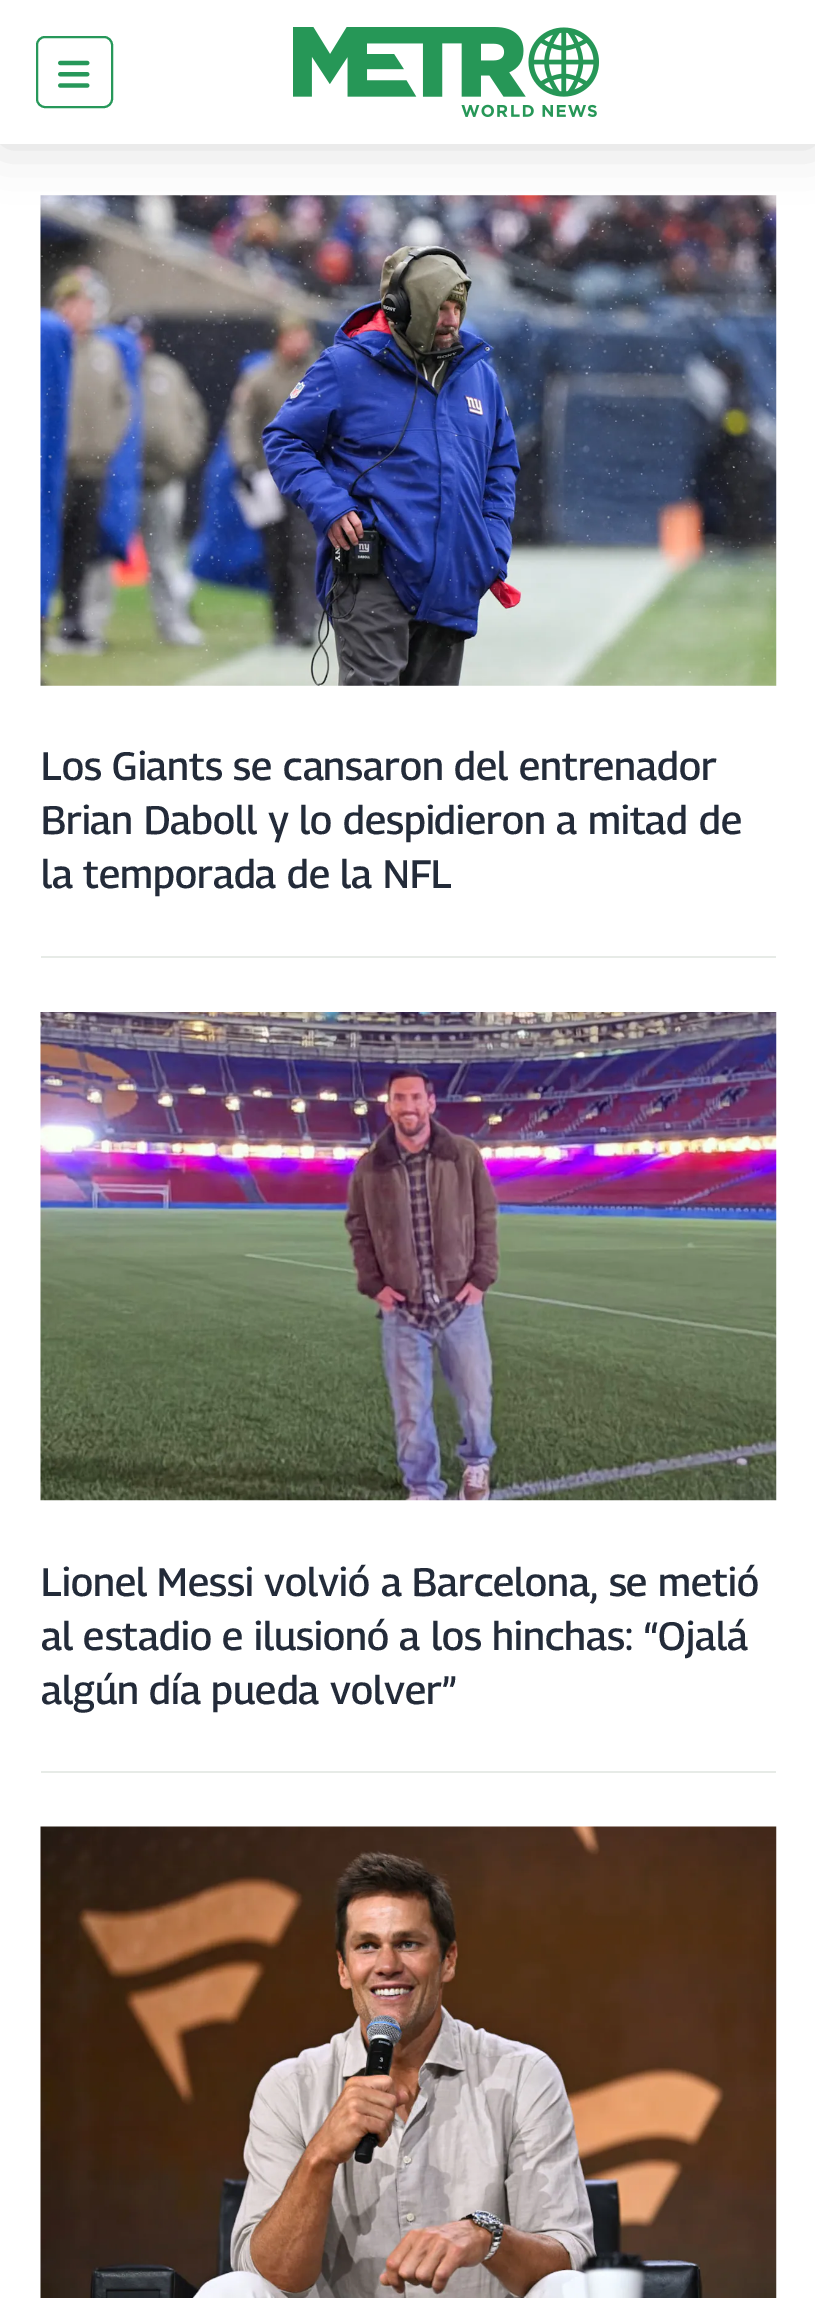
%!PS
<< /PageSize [815 2298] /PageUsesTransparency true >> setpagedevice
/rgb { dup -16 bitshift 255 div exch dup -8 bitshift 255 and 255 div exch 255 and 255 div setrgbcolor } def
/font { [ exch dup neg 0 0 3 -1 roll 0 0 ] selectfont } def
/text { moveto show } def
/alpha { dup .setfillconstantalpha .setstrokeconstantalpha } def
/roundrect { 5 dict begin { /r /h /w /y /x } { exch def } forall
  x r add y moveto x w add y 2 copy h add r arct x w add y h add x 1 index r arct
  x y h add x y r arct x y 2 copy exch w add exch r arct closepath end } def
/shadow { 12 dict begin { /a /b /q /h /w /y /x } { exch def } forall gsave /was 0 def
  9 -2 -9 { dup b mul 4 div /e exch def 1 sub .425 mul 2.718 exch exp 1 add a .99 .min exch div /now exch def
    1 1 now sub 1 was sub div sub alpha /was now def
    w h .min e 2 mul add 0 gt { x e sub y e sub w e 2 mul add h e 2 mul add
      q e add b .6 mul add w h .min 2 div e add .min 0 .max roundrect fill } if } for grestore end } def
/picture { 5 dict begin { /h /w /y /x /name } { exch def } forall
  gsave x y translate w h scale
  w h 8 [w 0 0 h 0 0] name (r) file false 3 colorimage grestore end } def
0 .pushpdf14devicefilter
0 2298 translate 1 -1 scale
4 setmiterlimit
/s1 { /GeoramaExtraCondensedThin-Medium 39.6 font 16#232B39 rgb } def
16#FFFFFF rgb
0 0 815 2298 rectfill
(pic3.raw) 40 195 737 491 picture
16#000000 rgb
0 0 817 144 0 27 0.15 shadow
16#FFFFFF rgb
0 0 815 144 rectfill
16#27985A rgb
2 setlinewidth
37 37 75 70 8 roundrect stroke
(pic1.raw) 58 60 32 28 picture
(pic2.raw) 293 27 306 90 picture
s1
(Los Giants se cansaron del entrenador) 41 780 text
(Brian Daboll y lo despidieron a mitad de) 41 834 text
(la temporada de la NFL) 41 888 text
16#E7EBE7 rgb
41 956 735 2 rectfill
(pic4.raw) 40 1012 737 489 picture
s1
(Lionel Messi volvió a Barcelona, se metió) 41 1596 text
(al estadio e ilusionó a los hinchas: “Ojalá) 41 1650 text
(algún día pueda volver”) 41 1704 text
16#E7EBE7 rgb
41 1771 735 2 rectfill
(pic5.raw) 40 1826 737 472 picture
.poppdf14devicefilter showpage
